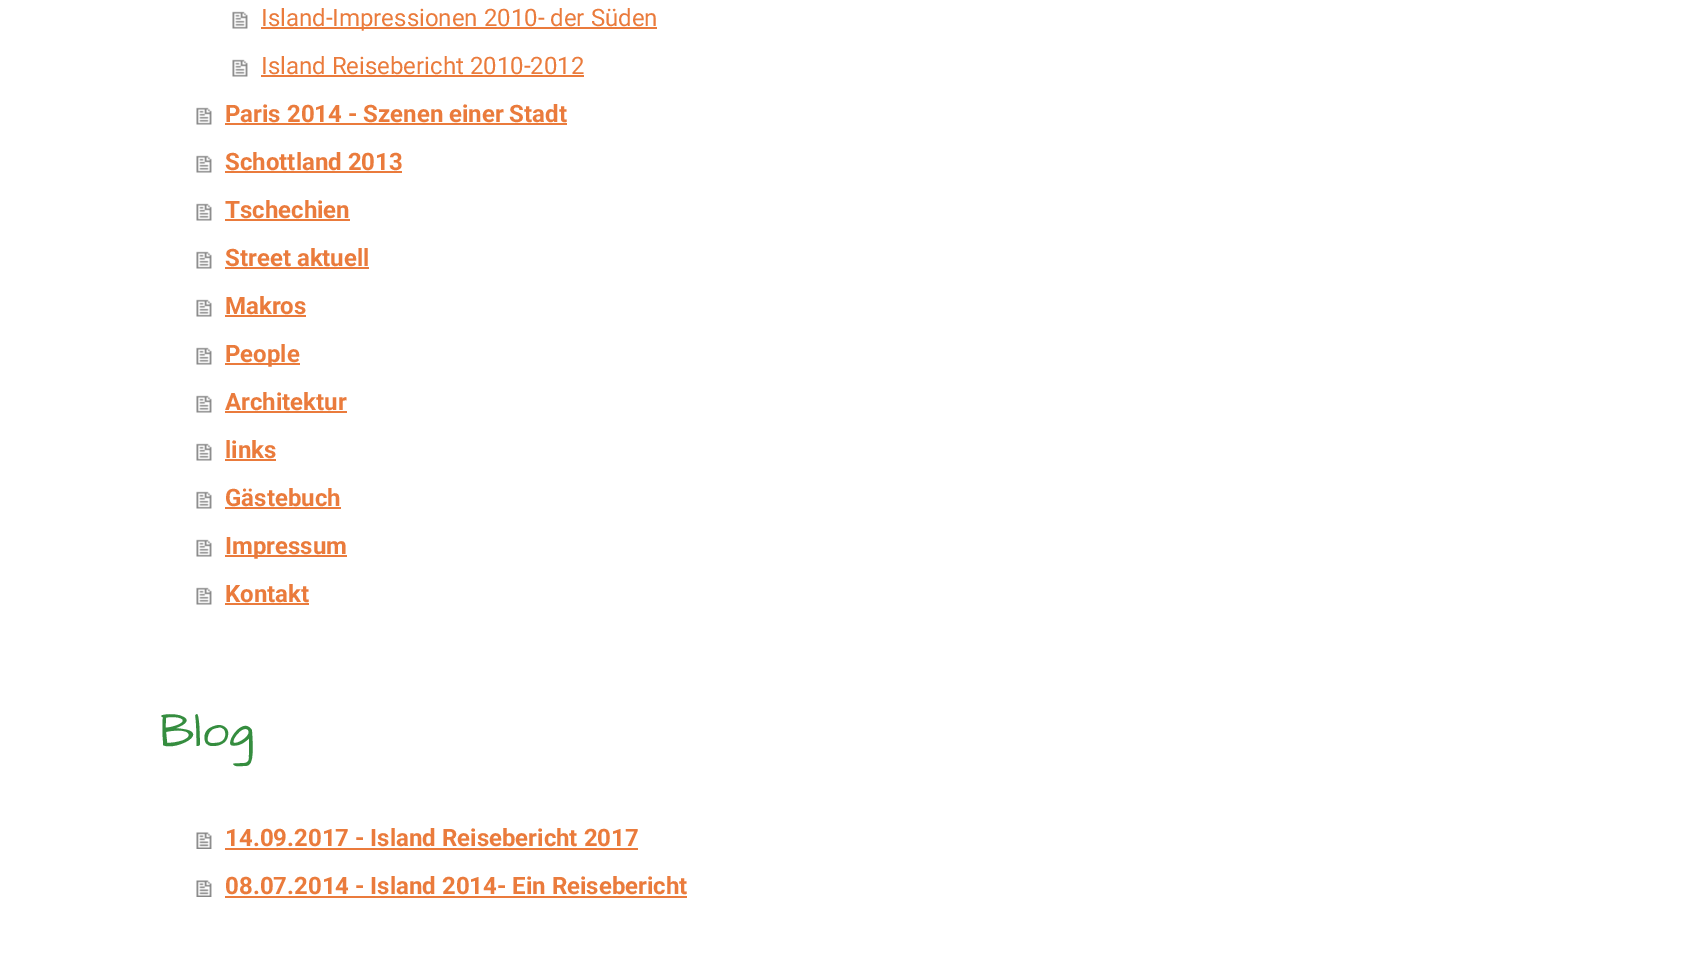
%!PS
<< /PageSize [1699 980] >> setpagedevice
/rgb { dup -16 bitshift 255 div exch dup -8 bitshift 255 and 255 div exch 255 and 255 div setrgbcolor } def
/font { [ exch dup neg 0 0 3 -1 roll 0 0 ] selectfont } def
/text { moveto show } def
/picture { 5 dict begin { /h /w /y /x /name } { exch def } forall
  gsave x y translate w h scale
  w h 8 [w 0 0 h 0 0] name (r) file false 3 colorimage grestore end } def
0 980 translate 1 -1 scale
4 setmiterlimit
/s1 { /Roboto-Regular 24 font 16#EA7B3C rgb } def
/s2 { /Roboto-Bold 24 font 16#EA7B3C rgb } def
/s3 { /ArchitectsDaughter-Regular 48 font 16#358D3F rgb } def
16#FFFFFF rgb
0 0 1699 980 rectfill
(pic1.raw) 232 11 16 18 picture
16#EA7B3C rgb
261 27 396 2 rectfill
s1
(Island-Impressionen 2010- der Süden) 261 26 text
(pic1.raw) 232 59 16 18 picture
(Island Reisebericht 2010-2012) 261 74 text
261 75 323 2 rectfill
(pic1.raw) 196 107 16 18 picture
s2
(Paris 2014 - Szenen einer Stadt) 225 122 text
225 123 342 2 rectfill
(pic1.raw) 196 155 16 18 picture
(Schottland 2013) 225 170 text
225 171 177 2 rectfill
(pic1.raw) 196 203 16 18 picture
(Tschechien) 225 218 text
225 219 125 2 rectfill
(pic1.raw) 196 251 16 18 picture
(Street aktuell) 225 266 text
225 267 144 2 rectfill
(pic1.raw) 196 299 16 18 picture
(Makros) 225 314 text
225 315 81 2 rectfill
(pic1.raw) 196 347 16 18 picture
225 363 75 2 rectfill
(People) 225 362 text
(pic1.raw) 196 395 16 18 picture
(Architektur) 225 410 text
225 411 122 2 rectfill
(pic1.raw) 196 443 16 18 picture
(links) 225 458 text
225 459 51 2 rectfill
(pic1.raw) 196 491 16 18 picture
(Gästebuch) 225 506 text
225 507 116 2 rectfill
(pic1.raw) 196 539 16 18 picture
225 555 122 2 rectfill
(Impressum) 225 554 text
(pic1.raw) 196 587 16 18 picture
(Kontakt) 225 602 text
225 603 84 2 rectfill
s3
(Blog) 160 746 text
(pic2.raw) 196 832 16 17 picture
s2
(14.09.2017 - Island Reisebericht 2017) 225 846 text
225 848 413 2 rectfill
(pic2.raw) 196 880 16 17 picture
(08.07.2014 - Island 2014- Ein Reisebericht) 225 894 text
225 896 462 2 rectfill
showpage
